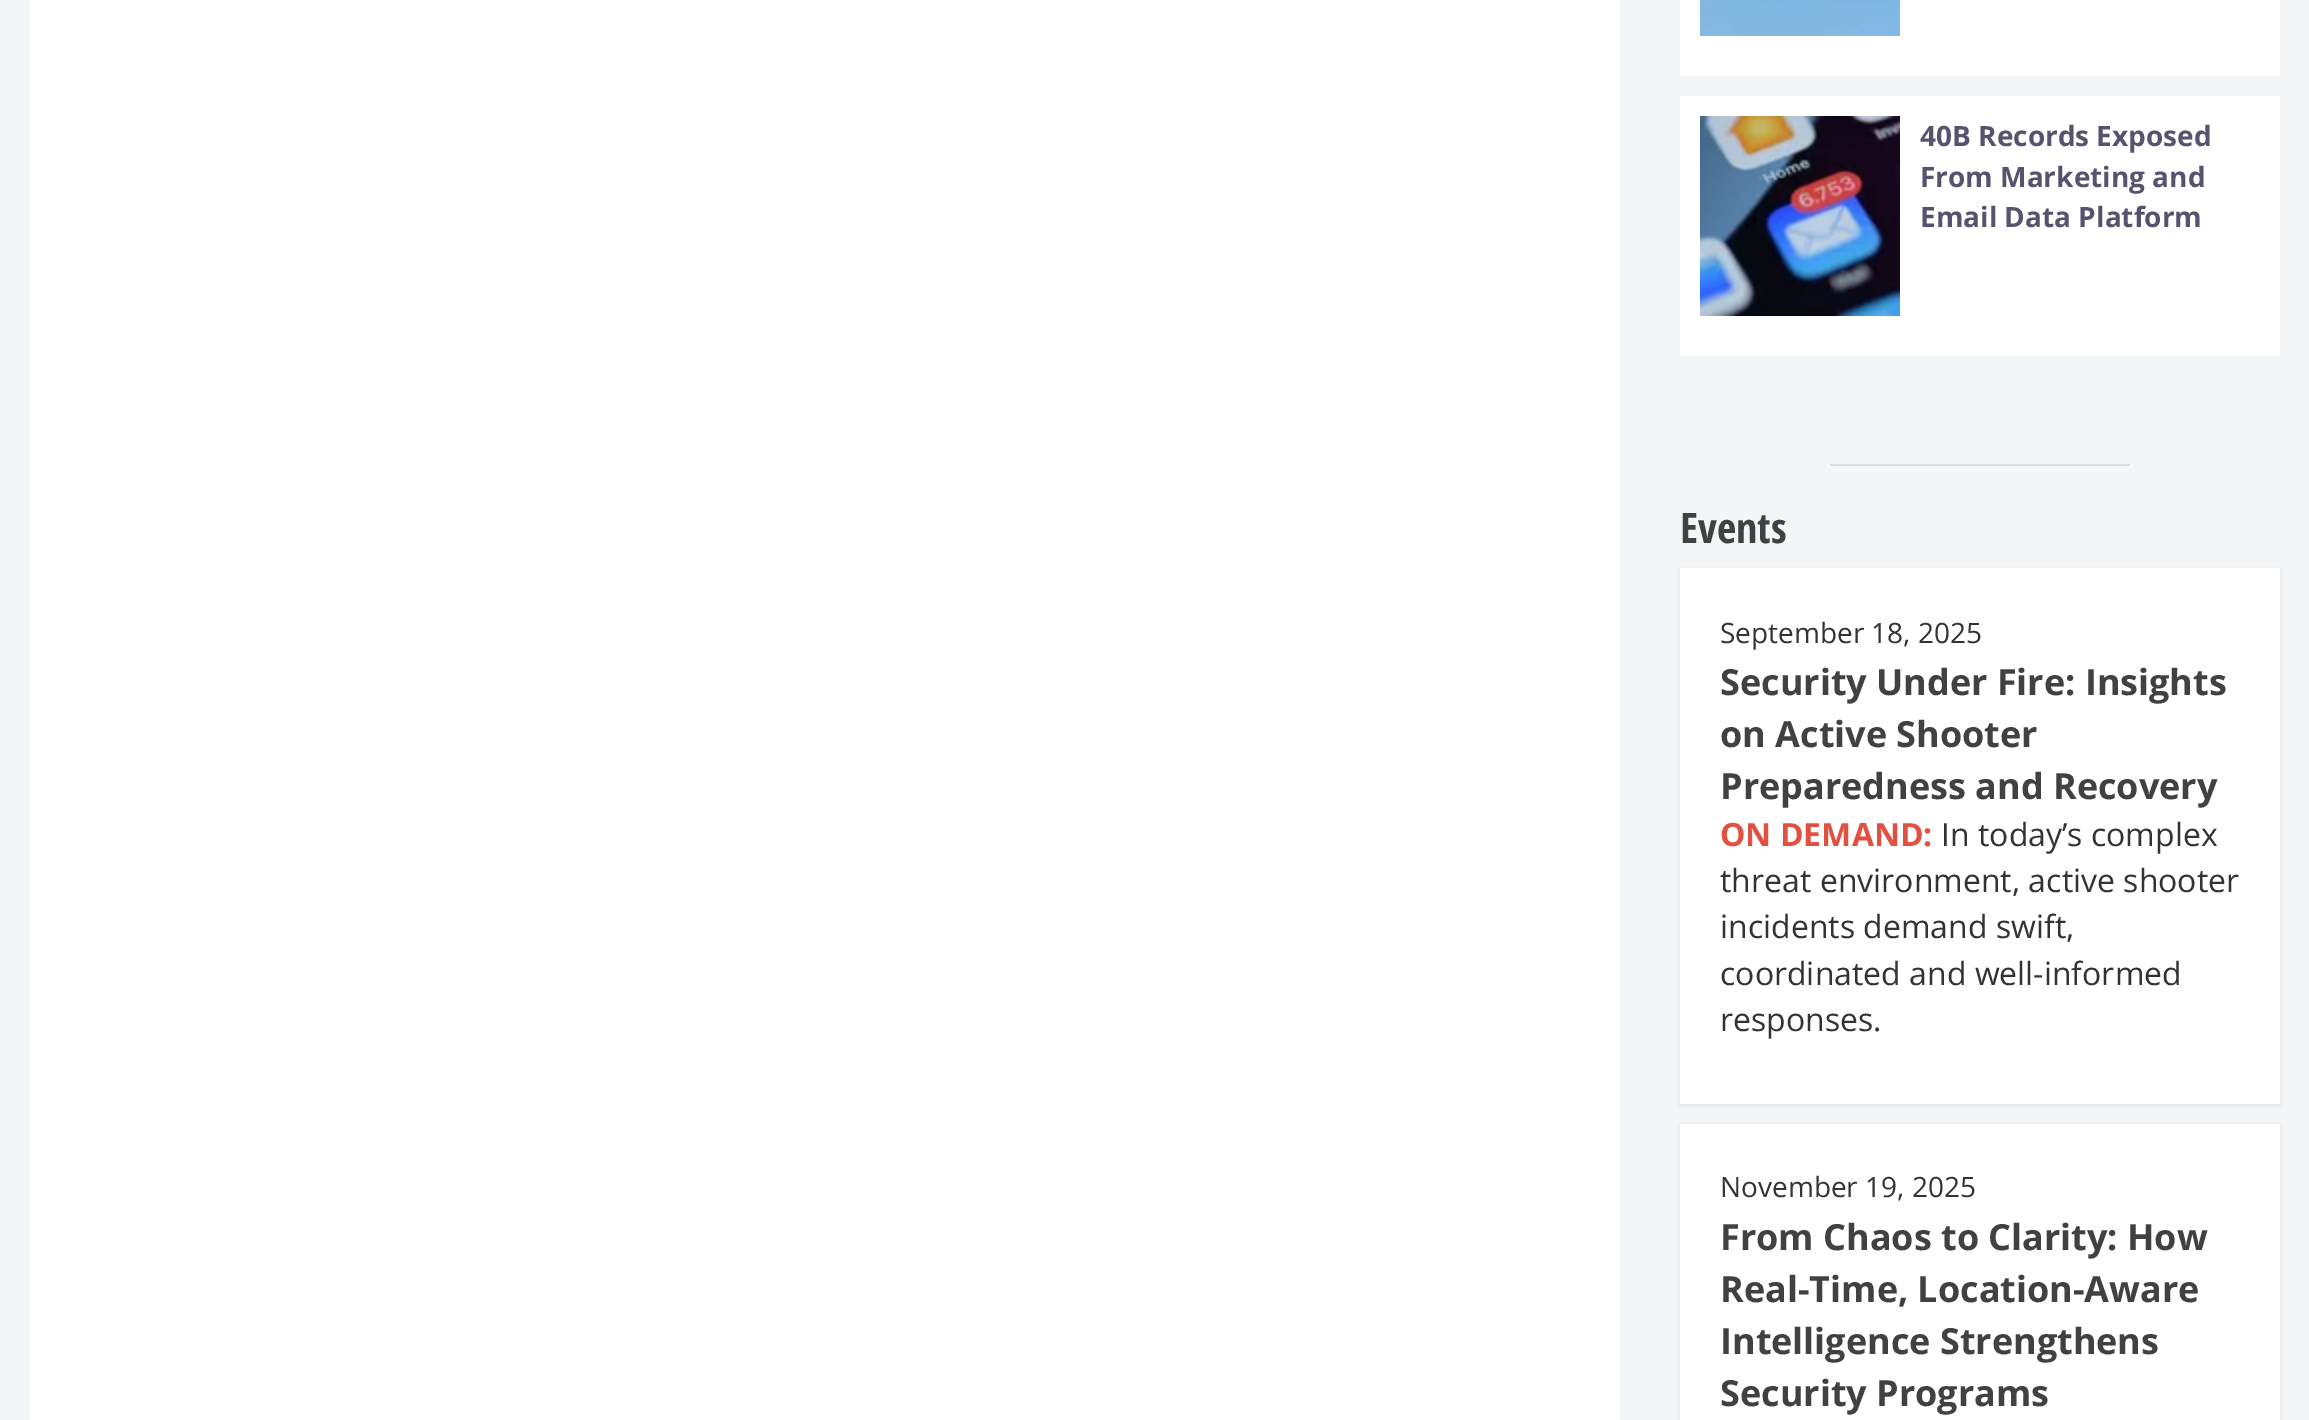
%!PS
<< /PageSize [2309 1420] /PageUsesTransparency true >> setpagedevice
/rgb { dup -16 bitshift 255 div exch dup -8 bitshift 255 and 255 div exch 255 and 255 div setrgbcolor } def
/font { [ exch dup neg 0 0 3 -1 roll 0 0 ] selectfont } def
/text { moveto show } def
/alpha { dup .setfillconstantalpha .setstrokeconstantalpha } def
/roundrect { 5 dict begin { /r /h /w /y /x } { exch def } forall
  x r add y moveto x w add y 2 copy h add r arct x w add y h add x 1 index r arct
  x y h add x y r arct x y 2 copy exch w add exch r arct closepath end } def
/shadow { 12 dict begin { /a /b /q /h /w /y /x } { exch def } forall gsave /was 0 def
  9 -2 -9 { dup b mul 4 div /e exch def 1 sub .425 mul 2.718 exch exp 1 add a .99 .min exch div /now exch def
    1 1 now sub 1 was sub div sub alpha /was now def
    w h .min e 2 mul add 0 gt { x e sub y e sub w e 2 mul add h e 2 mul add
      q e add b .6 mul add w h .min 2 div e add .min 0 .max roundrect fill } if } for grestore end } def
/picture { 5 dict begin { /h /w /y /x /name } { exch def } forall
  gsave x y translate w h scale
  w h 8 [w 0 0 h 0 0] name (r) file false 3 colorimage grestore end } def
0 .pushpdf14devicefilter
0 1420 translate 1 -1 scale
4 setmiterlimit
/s1 { /OpenSans-Bold 28 font 16#58526F rgb } def
/s2 { /OpenSansCondensed-Bold 42 font 16#404144 rgb } def
/s3 { /OpenSans-Regular 28 font 16#333333 rgb } def
/s4 { /OpenSans-Bold 36 font 16#404144 rgb } def
/s5 { /OpenSans-Bold 32 font 16#E25041 rgb } def
/s6 { /OpenSans-Regular 32 font 16#333333 rgb } def
16#F4F5F6 rgb
0 0 2309 1420 rectfill
16#FFFFFF rgb
30 0 1590 1420 rectfill
1680 0 600 76 rectfill
(pic1.raw) 1700 0 200 36 picture
1680 96 600 260 rectfill
(pic2.raw) 1700 116 200 200 picture
s1
(40B Records Exposed) 1920 146 text
(From Marketing and) 1920 187 text
(Email Data Platform) 1920 227 text
16#DDDDDD rgb
1830 464 300 2 rectfill
s2
(Events) 1680 543 text
16#090F13 rgb
1680 570 600 536 0 2 0.08 shadow
16#FFFFFF rgb
1680 568 600 536 rectfill
s3
(September 18, 2025) 1720 643 text
s4
(Security Under Fire: Insights) 1720 695 text
(on Active Shooter) 1720 747 text
(Preparedness and Recovery) 1720 799 text
s5
(ON DEMAND:) 1720 846 text
s6
(In today’s complex) 1941 846 text
(threat environment, active shooter) 1720 892 text
(incidents demand swift,) 1720 938 text
(coordinated and well-informed) 1720 985 text
(responses.) 1720 1031 text
16#090F13 rgb
1680 1126 600 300 0 2 0.08 shadow
16#FFFFFF rgb
1680 1124 600 296 rectfill
s3
(November 19, 2025) 1720 1197 text
s4
(From Chaos to Clarity: How) 1720 1250 text
(Real-Time, Location-Aware) 1720 1302 text
(Intelligence Strengthens) 1720 1354 text
(Security Programs) 1720 1406 text
.poppdf14devicefilter showpage
